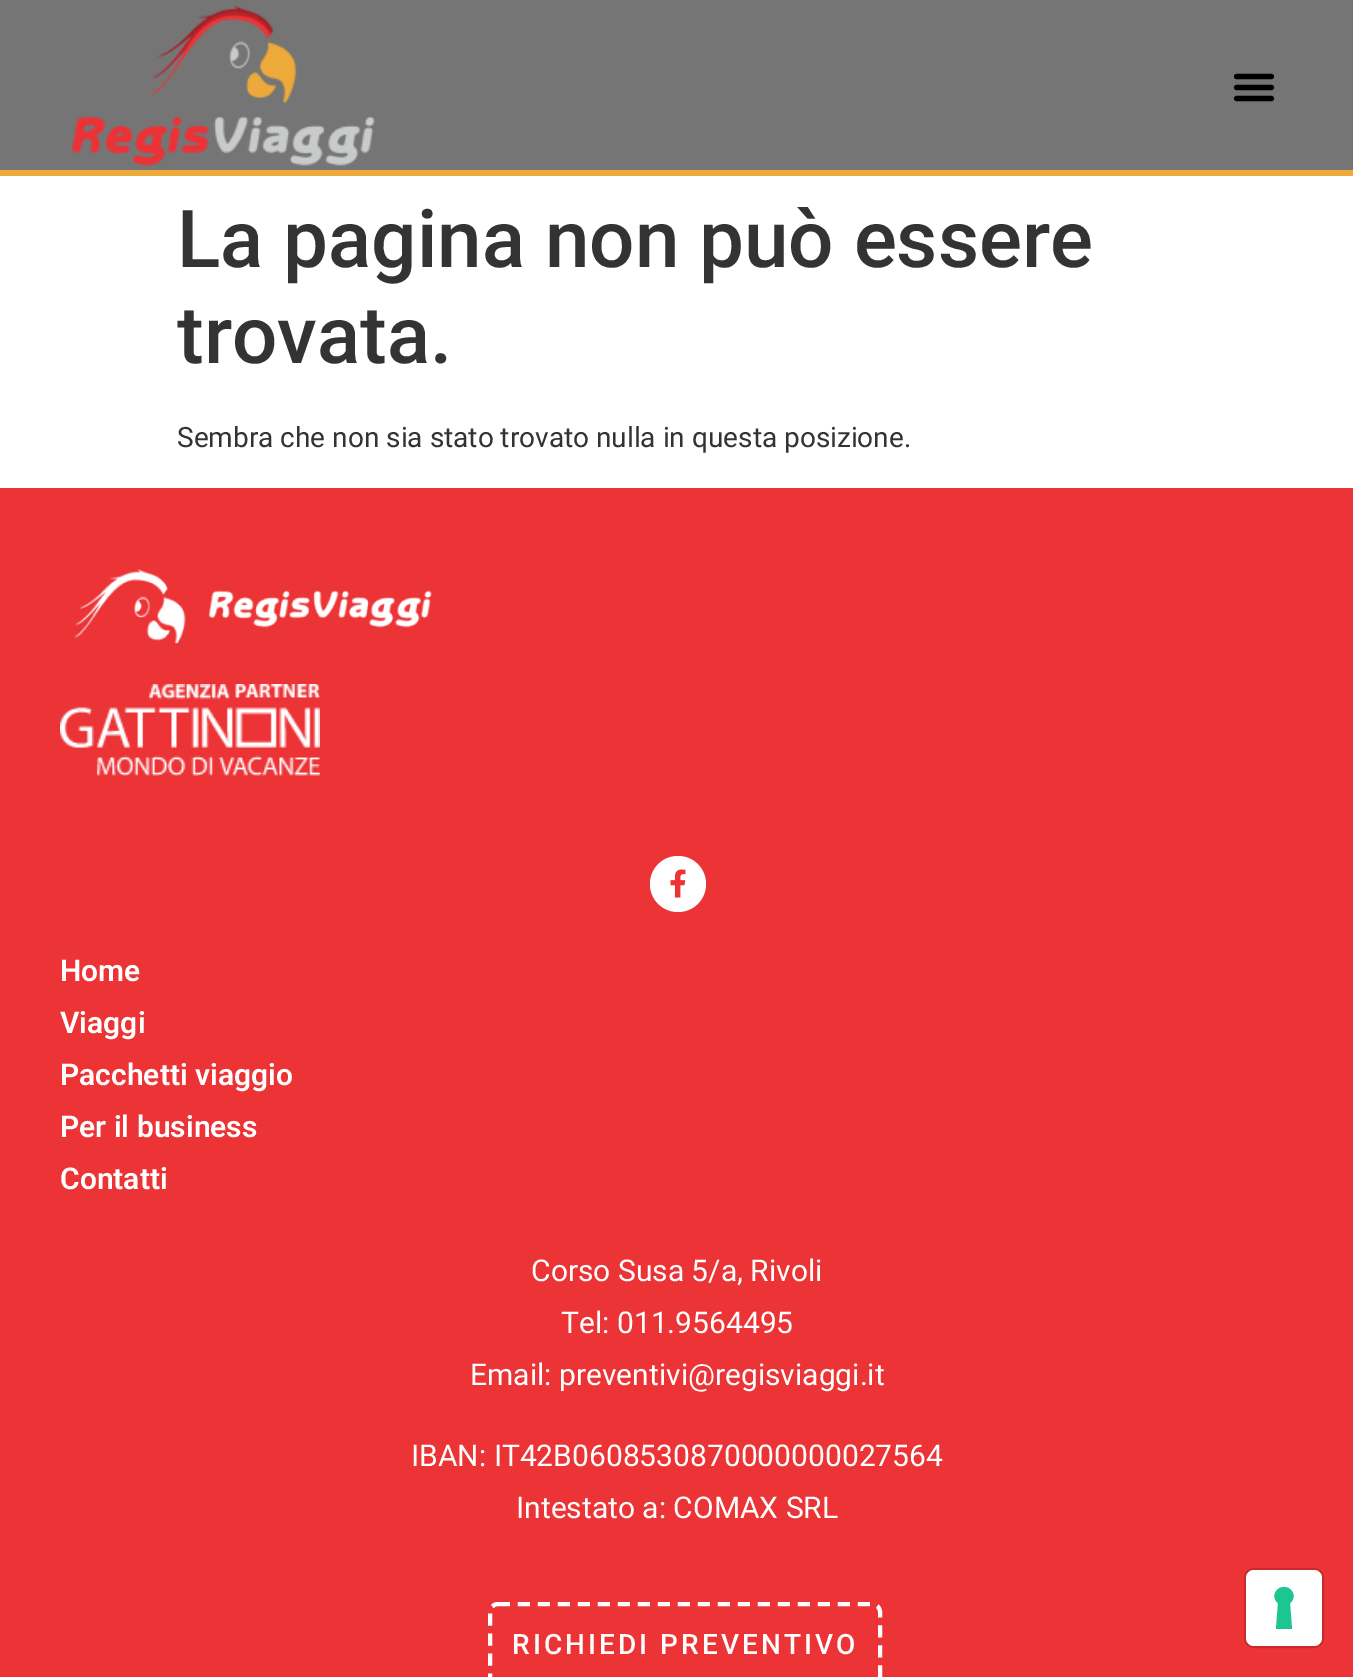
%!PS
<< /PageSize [1353 1677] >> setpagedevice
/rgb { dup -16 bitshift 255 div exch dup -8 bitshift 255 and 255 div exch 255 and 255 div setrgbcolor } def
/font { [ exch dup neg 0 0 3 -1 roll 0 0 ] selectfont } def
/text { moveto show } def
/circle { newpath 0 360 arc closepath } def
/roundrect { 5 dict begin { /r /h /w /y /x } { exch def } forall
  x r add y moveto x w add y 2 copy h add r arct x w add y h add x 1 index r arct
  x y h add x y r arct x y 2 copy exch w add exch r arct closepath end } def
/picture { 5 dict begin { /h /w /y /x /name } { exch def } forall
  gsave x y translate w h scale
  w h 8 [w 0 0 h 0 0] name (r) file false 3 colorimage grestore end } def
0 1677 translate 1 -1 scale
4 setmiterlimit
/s1 { /Roboto-Medium 80 font 16#333333 rgb } def
/s2 { /Roboto-Regular 28 font 16#333333 rgb } def
/s3 { /Roboto-SemiBold 30 font 16#FFFFFF rgb } def
/s4 { /Roboto-Regular 30 font 16#FFFFFF rgb } def
16#FFFFFF rgb
0 0 1353 1677 rectfill
16#757575 rgb
0 0 1353 170 rectfill
16#EDA939 rgb
0 170 1353 6 rectfill
(pic1.raw) 71 4 304 162 picture
(pic2.raw) 1233 73 42 29 picture
s1
(La pagina non può essere) 177 267 text
(trovata.) 177 363 text
s2
(Sembra che non sia stato trovato nulla in questa posizione.) 177 447 text
16#EC3336 rgb
0 488 1353 1189 rectfill
(pic3.raw) 74 568 112 76 picture
(pic4.raw) 208 580 225 48 picture
(pic5.raw) 60 684 260 92 picture
16#FFFFFF rgb
678 884 28 circle fill
(pic6.raw) 670 869 16 29 picture
s3
(Home) 60 981 text
(Viaggi) 60 1033 text
(Pacchetti viaggio) 60 1085 text
(Per il business) 60 1137 text
(Contatti) 60 1189 text
s4
(Corso Susa 5/a, Rivoli) 531 1281 text
(Tel: 011.9564495) 561 1333 text
(Email: preventivi@regisviaggi.it) 470 1385 text
(IBAN: IT42B0608530870000000027564) 411 1466 text
(Intestato a: COMAX SRL) 516 1518 text
4 setlinewidth
[12 8] 0 setdash
498 1604 moveto 872 1604 lineto 876.5 1604 880 1607.5 880 1612 curveto 880 1676 lineto 880 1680.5 876.5 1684 872 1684 curveto 498 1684 lineto 493.5 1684 490 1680.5 490 1676 curveto 490 1612 lineto 490 1607.5 493.5 1604 498 1604 curveto closepath stroke
/Roboto-Medium 28 font
512 1654 moveto 3.1 0 (RICHIEDI PREVENTIVO) ashow
16#C92B2E rgb
2 setlinewidth
[] 0 setdash
1245 1569 78 78 9 roundrect stroke
16#FFFFFF rgb
1246 1570 76 76 8 roundrect fill
16#1CC691 rgb
1284 1587 moveto 1293 1587 1297 1598 1290 1603 curveto 1292 1629 lineto 1276 1629 lineto 1278 1603 lineto 1271 1598 1275 1587 1284 1587 curveto closepath eofill
showpage
